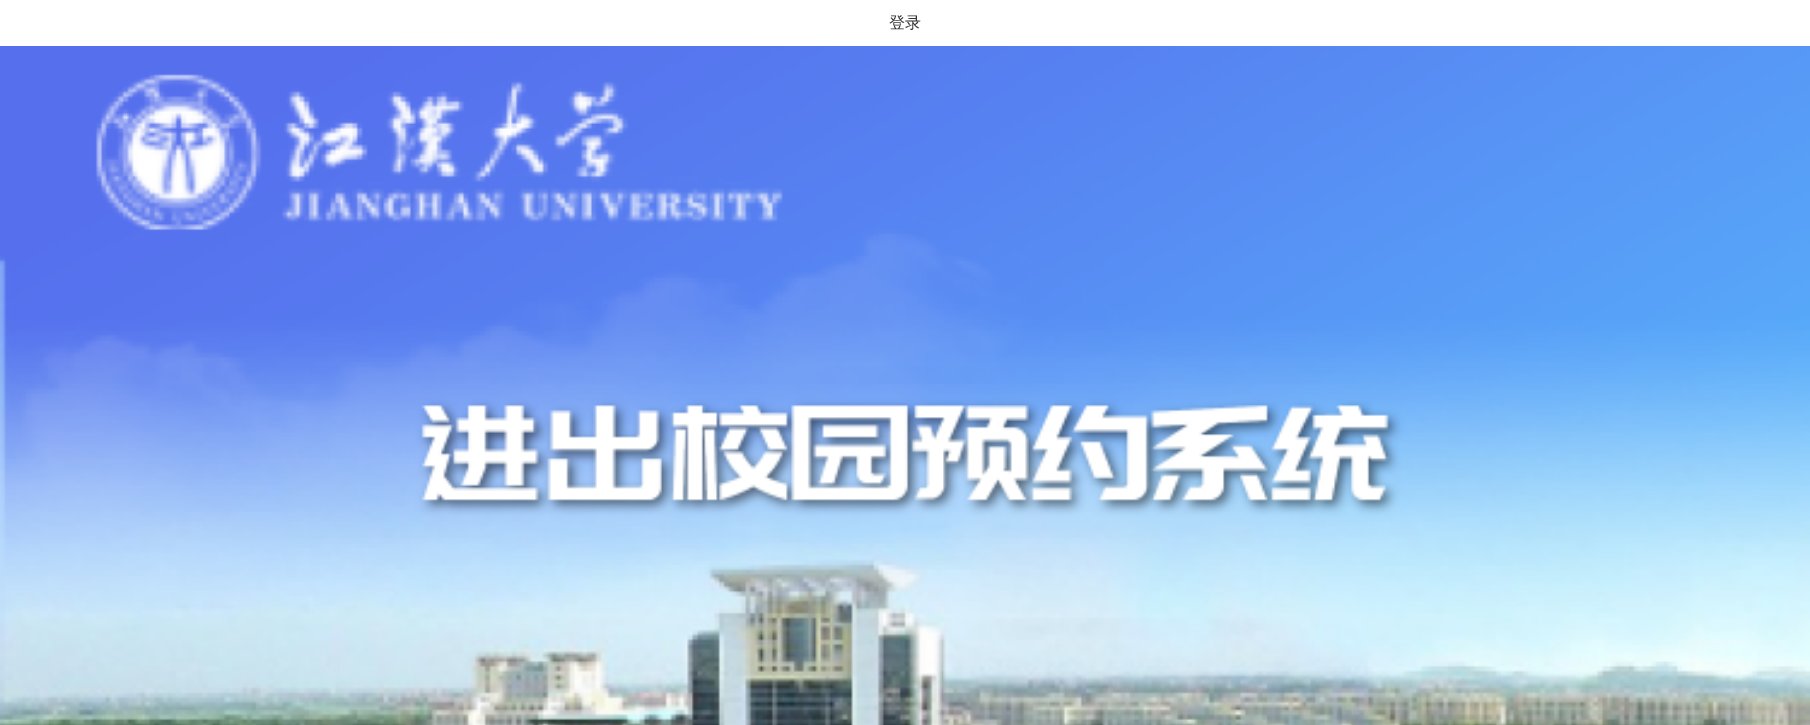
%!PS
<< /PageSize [1810 725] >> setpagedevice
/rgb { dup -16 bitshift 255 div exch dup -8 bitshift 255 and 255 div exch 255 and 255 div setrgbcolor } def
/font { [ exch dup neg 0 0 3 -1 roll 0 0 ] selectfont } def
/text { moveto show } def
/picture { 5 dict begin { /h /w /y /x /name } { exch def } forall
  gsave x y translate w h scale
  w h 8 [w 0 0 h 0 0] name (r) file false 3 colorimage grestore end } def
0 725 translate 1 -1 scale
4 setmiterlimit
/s1 { /WenQuanYiZenHei-Medium 16 font 16#323233 rgb } def
16#FFFFFF rgb
0 0 1810 725 rectfill
s1
(登录) 889 28 text
(pic1.raw) 0 46 1810 679 picture
showpage
